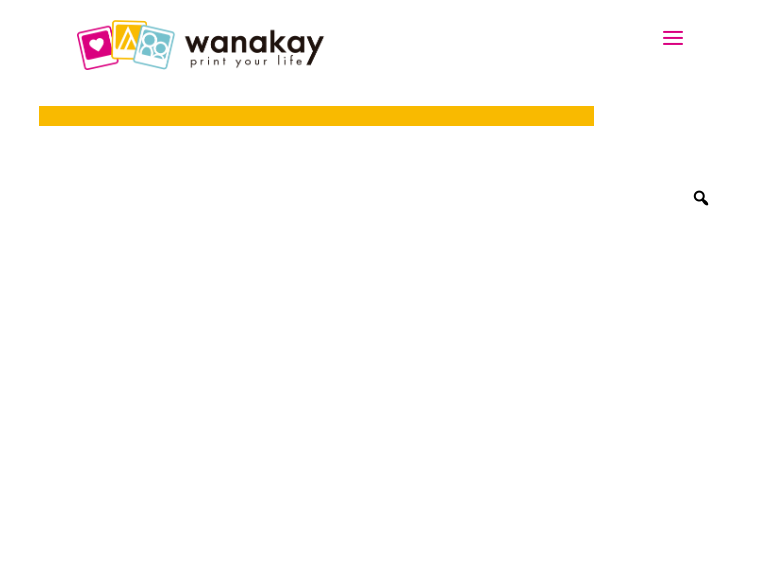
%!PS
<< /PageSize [772 571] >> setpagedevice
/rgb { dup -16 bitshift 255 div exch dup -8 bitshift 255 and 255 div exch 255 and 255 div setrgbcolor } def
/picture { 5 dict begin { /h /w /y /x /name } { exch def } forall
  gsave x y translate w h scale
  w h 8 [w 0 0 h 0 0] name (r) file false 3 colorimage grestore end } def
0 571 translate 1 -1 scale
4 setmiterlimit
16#FFFFFF rgb
0 0 772 571 rectfill
(pic1.raw) 77 20 248 50 picture
(pic2.raw) 663 30 20 15 picture
16#F9BA00 rgb
39 106 555 20 rectfill
(pic3.raw) 693 190 16 16 picture
showpage
